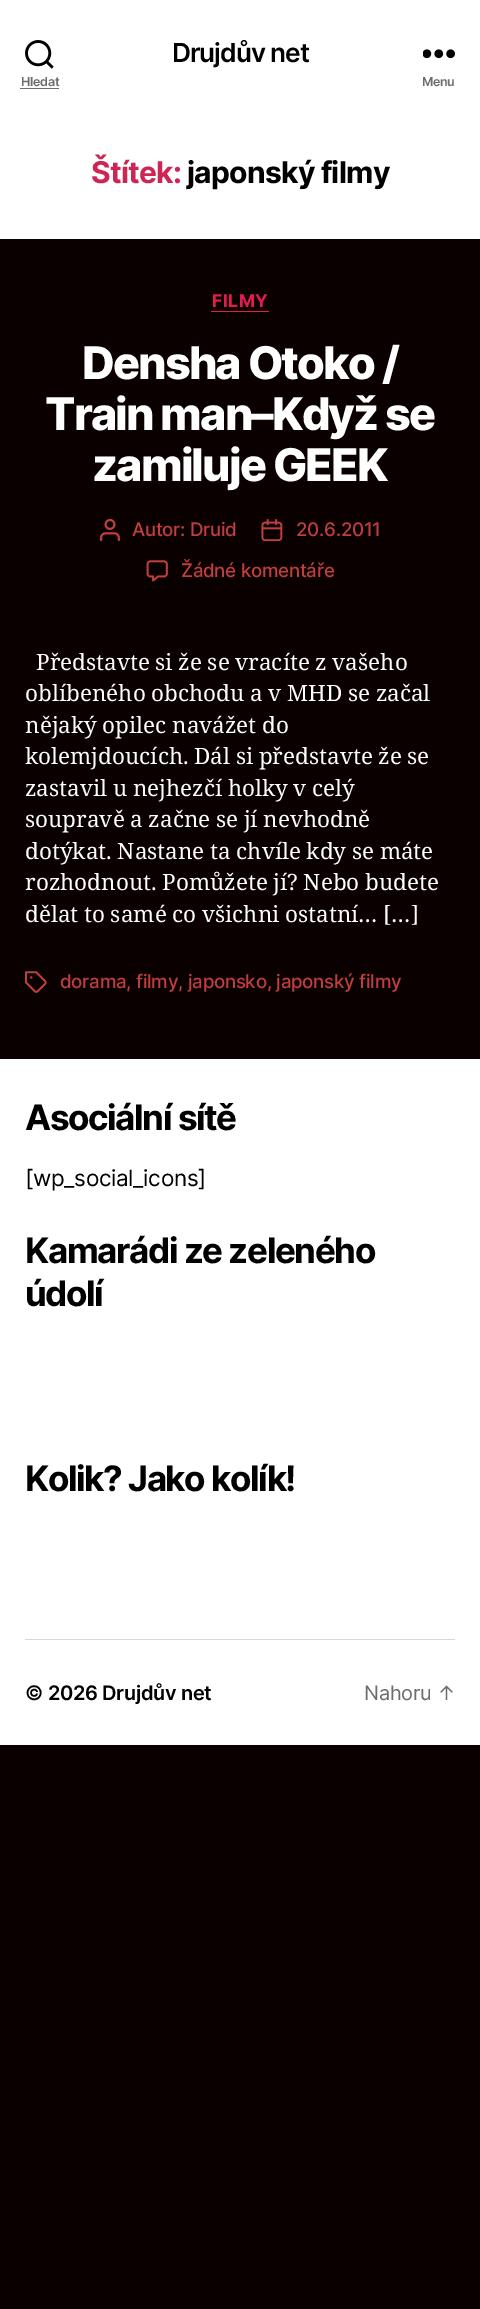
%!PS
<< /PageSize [480 2309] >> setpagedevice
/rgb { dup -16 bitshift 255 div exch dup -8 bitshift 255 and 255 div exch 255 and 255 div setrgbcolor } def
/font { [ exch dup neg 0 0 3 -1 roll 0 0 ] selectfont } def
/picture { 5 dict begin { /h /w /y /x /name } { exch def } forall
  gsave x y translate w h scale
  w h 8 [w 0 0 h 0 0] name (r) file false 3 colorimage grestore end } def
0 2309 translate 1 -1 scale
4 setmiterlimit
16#0A0000 rgb
0 0 480 2309 rectfill
16#FFFFFF rgb
0 0 480 239 rectfill
/Inter-SemiBold 26.25 font
16#000000 rgb
172 62 moveto -1 0 (Drujdův net) ashow
(pic1.raw) 25 40 29 29 picture
/Inter-SemiBold 12.5 font
16#6D6D6D rgb
21 86 moveto -0.3 0 (Hledat) ashow
20 88 39 1 rectfill
(pic2.raw) 423 49 32 10 picture
422 86 moveto -0.3 0 (Menu) ashow
/Inter-Bold 30 font
16#CD2653 rgb
91 183 moveto -0.75 0 (Štítek:) ashow
16#000000 rgb
187 183 moveto -0.75 0 (japonský filmy) ashow
16#E41A50 rgb
211 311 58 1 rectfill
/Inter-Bold 17.5 font
212 307 moveto 0.5 0 (FILMY) ashow
/Inter-ExtraBold 45 font
16#FFFFFF rgb
82 379 moveto -1.9 0 (Densha Otoko /) ashow
45 430 moveto -1.9 0 (Train man–Když se) ashow
92 481 moveto -1.9 0 (zamiluje GEEK) ashow
(pic3.raw) 100 519 20 22 picture
/Inter-Medium 18.75 font
16#BF3F3F rgb
132 536 moveto -0.3 0 (Autor: Druid) ashow
(pic4.raw) 261 519 22 22 picture
296 536 moveto -0.3 0 (20.6.2011) ashow
(pic5.raw) 146 560 22 22 picture
181 577 moveto -0.3 0 (Žádné komentáře) ashow
/NotoSerif-Regular 22.5 font
16#FFFFFF rgb
36 670 moveto -0.25 0 32 (Představte si že se vracíte z vašeho) widthshow
25 701 moveto -0.25 0 32 (oblíbeného obchodu a v MHD se začal) widthshow
25 733 moveto -0.25 0 32 (nějaký opilec navážet do) widthshow
25 764 moveto -0.25 0 32 (kolemjdoucích. Dál si představte že se) widthshow
25 796 moveto -0.25 0 32 (zastavil u nejhezčí holky v celý) widthshow
25 827 moveto -0.25 0 32 (soupravě a začne se jí nevhodně) widthshow
25 859 moveto -0.25 0 32 (dotýkat. Nastane ta chvíle kdy se máte) widthshow
25 890 moveto -0.25 0 32 (rozhodnout. Pomůžete jí? Nebo budete) widthshow
25 922 moveto -0.25 0 32 (dělat to samé co všichni ostatní… […]) widthshow
(pic6.raw) 25 971 22 22 picture
/Inter-Medium 18.75 font
16#BF3F3F rgb
60 988 moveto -0.3 0 (dorama, filmy, japonsko, japonský filmy) ashow
16#FFFFFF rgb
0 1059 480 686 rectfill
16#DCD7CA rgb
25 1639 430 1 rectfill
/Inter-Bold 35 font
16#000000 rgb
25 1130 moveto -1.4 0 (Asociální sítě) ashow
/Inter-Regular 22.5 font
25 1186 moveto -0.3 0 ([wp_social_icons]) ashow
/Inter-Bold 35 font
25 1263 moveto -1.4 0 (Kamarádi ze zeleného) ashow
25 1306 moveto -1.4 0 (údolí) ashow
25 1491 moveto -1.4 0 (Kolik? Jako kolík!) ashow
/Inter-SemiBold 20 font
25 1700 moveto -0.3 0 (© 2026 Drujdův net) ashow
/Inter-Regular 20 font
16#6D6D6D rgb
364 1700 moveto -0.3 0 (Nahoru ↑) ashow
showpage
